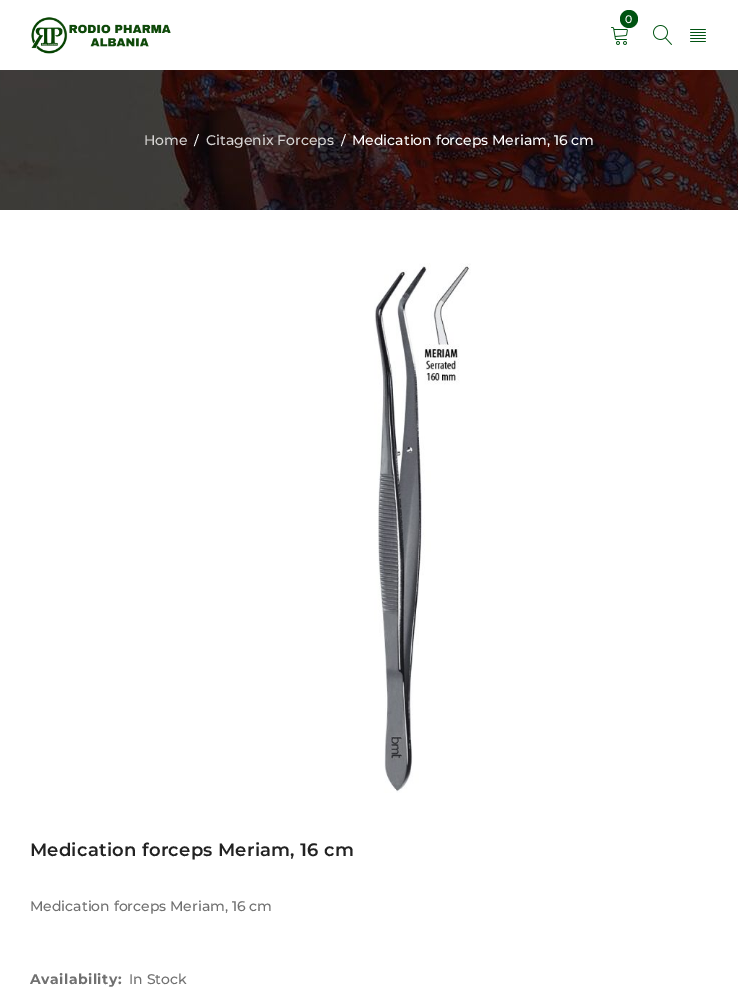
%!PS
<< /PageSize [738 989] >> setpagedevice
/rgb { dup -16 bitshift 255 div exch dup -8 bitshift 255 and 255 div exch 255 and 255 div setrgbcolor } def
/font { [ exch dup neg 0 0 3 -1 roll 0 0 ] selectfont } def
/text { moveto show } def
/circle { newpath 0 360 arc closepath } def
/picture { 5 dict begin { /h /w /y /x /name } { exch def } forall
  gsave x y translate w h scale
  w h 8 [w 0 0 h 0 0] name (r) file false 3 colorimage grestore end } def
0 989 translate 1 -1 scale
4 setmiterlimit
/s1 { /Montserrat-Medium 11 font 16#FFFFFF rgb } def
/s2 { /Montserrat-Medium 14 font 16#D7D5D4 rgb } def
/s3 { /Montserrat-Medium 13 font 16#FFFFFF rgb } def
/s4 { /Montserrat-Medium 14 font 16#FFFFFF rgb } def
/s5 { /Montserrat-Medium 14 font 16#707070 rgb } def
16#FFFFFF rgb
0 0 738 989 rectfill
(pic1.raw) 31 17 140 37 picture
(pic2.raw) 611 27 17 18 picture
16#005311 rgb
629 19 9 circle fill
s1
(0) 625 23 text
(pic3.raw) 653 25 19 20 picture
(pic4.raw) 690 29 16 13 picture
(pic5.raw) 0 70 738 140 picture
s2
(Home) 144 145 text
s3
(/) 194 145 text
s2
(Citagenix Forceps) 206 145 text
s3
(/) 341 145 text
s4
(Medication forceps Meriam, 16 cm) 352 145 text
(pic6.raw) 374 263 97 530 picture
/Montserrat-SemiBold 18 font
16#222222 rgb
30 856 moveto 0.25 0 (Medication forceps Meriam, 16 cm) ashow
s5
(Medication forceps Meriam, 16 cm) 30 911 text
/Montserrat-Bold 14 font
30 984 moveto 0.5 0 (Availability:) ashow
s5
(In Stock) 129 984 text
showpage
